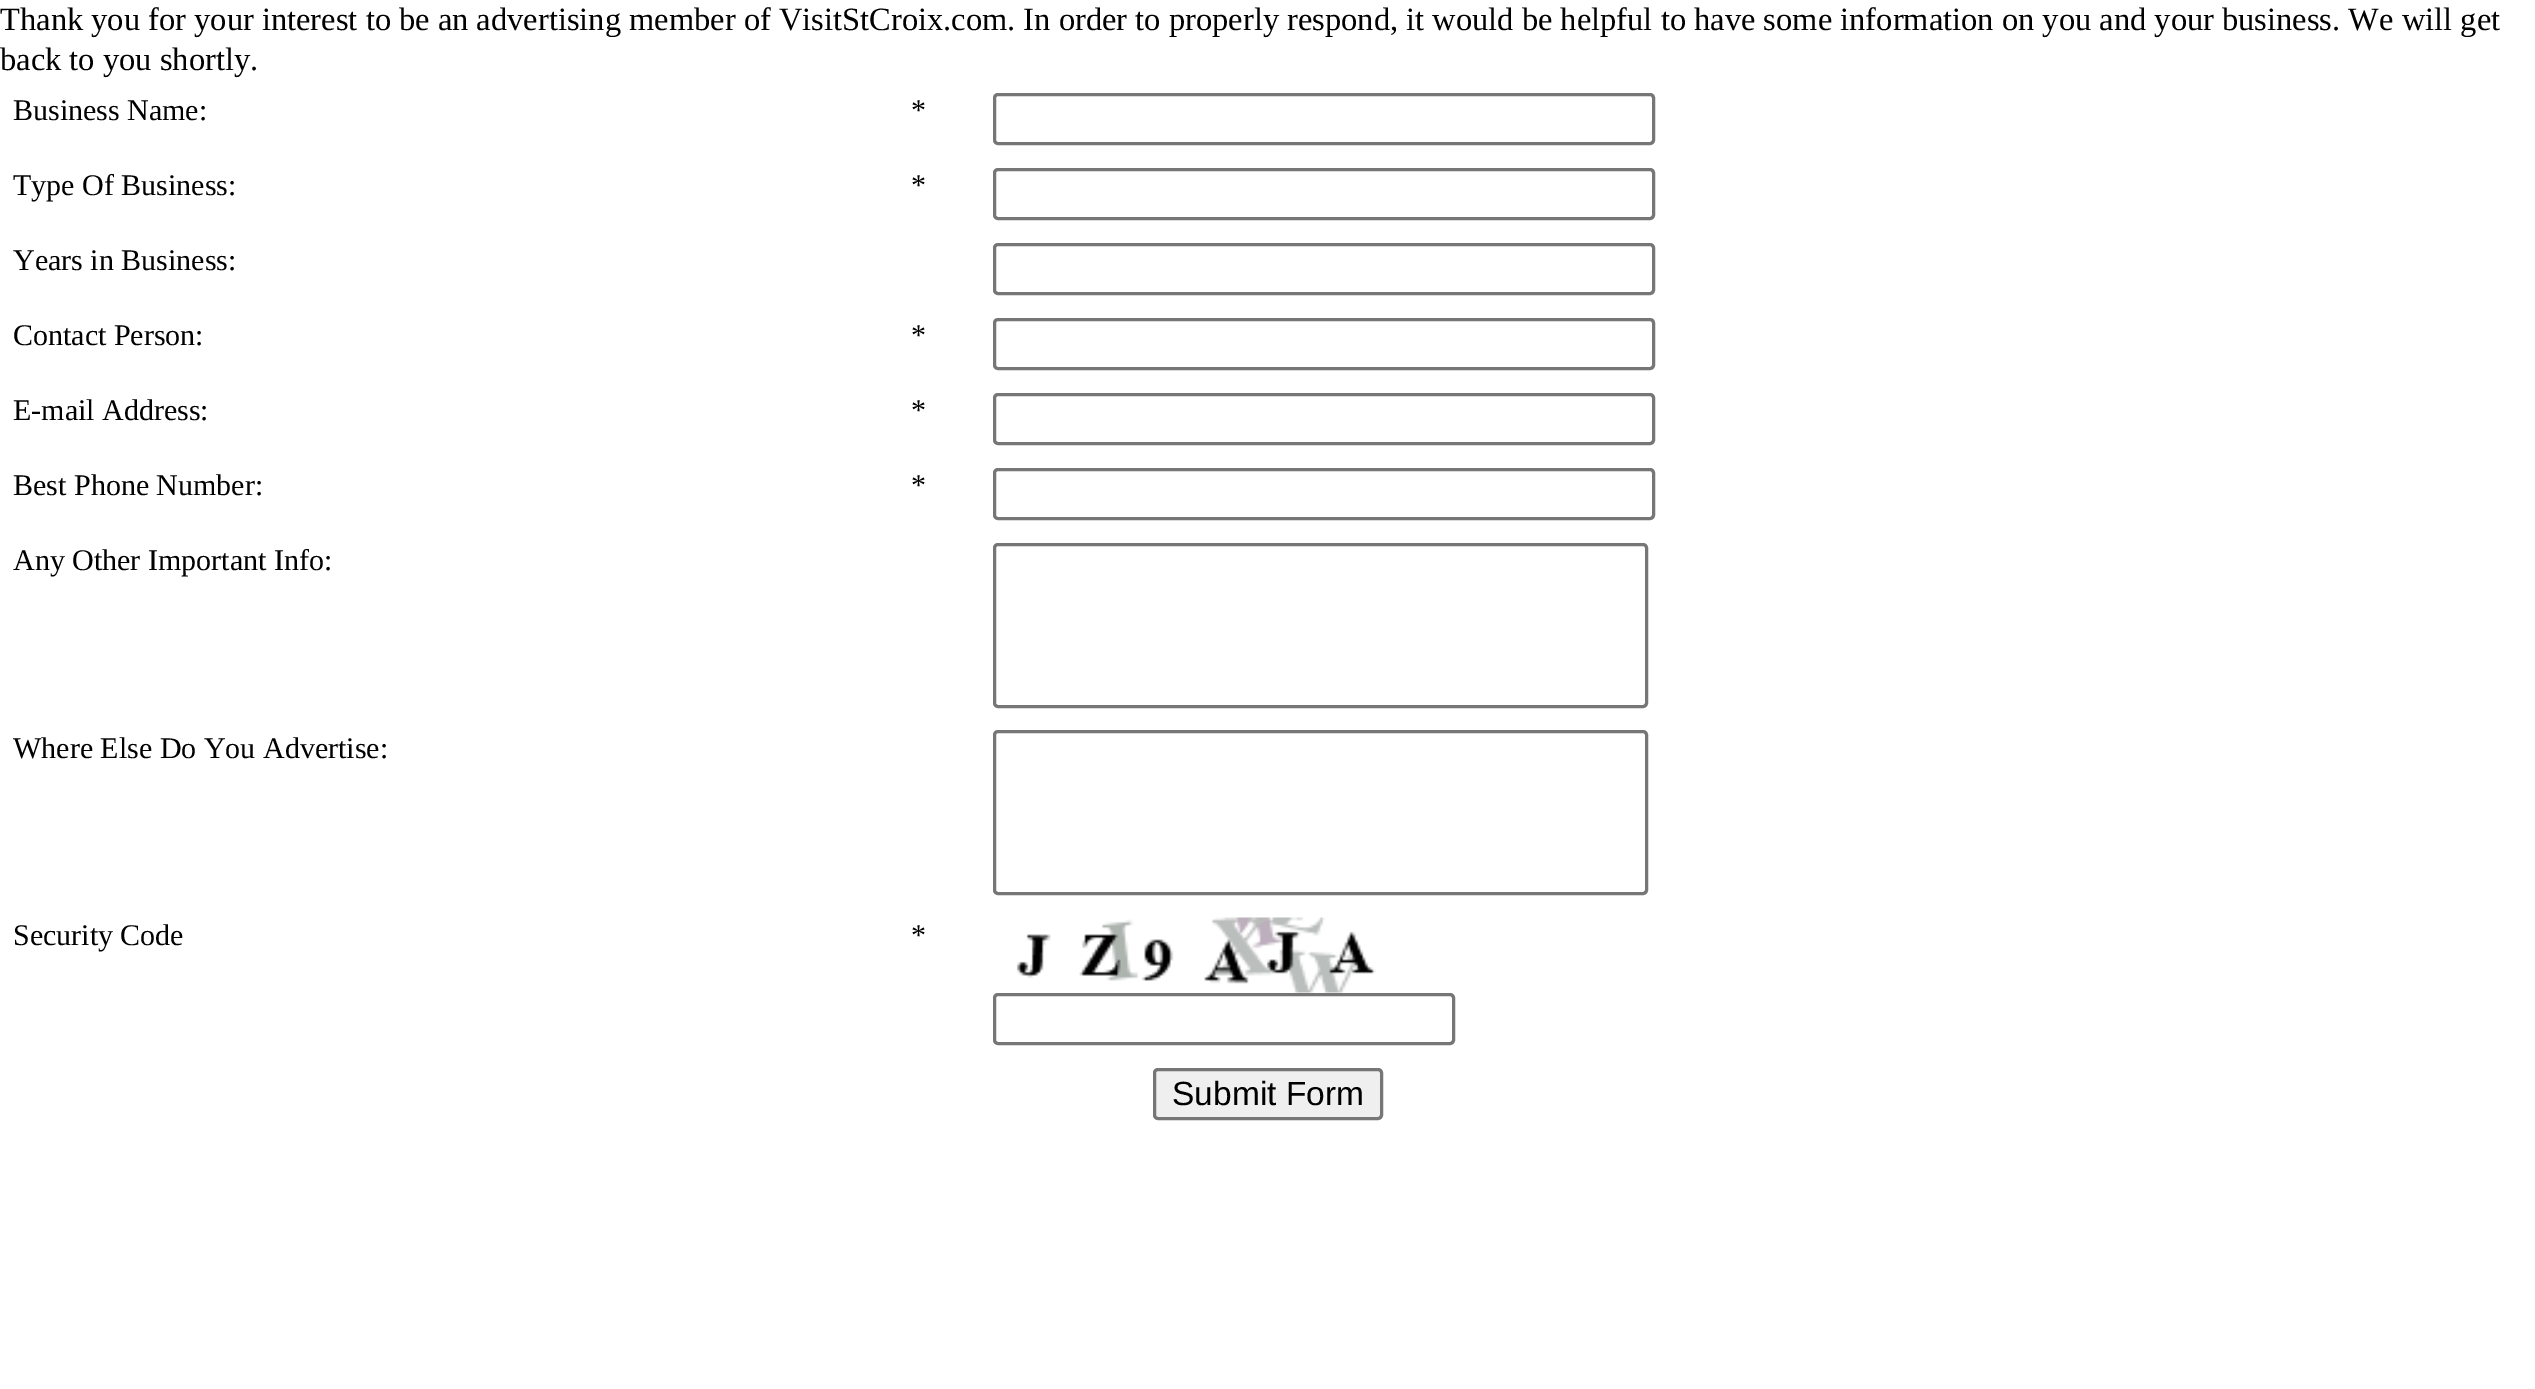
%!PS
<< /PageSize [2535 1389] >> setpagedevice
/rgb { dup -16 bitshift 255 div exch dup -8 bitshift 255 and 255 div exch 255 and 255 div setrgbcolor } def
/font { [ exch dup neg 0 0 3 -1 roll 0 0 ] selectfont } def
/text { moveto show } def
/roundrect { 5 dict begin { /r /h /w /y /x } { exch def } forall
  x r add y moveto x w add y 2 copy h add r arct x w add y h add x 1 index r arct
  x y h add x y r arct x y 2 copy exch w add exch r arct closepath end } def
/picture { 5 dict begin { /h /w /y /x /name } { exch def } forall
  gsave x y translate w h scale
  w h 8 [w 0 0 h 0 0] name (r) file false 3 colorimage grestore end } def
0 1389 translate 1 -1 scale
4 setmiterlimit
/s1 { /LiberationSerif-Regular 32.5 font 16#000000 rgb } def
/s2 { /LiberationSerif-Regular 30 font 16#000000 rgb } def
/s3 { /LiberationSans-Regular 33.5 font 16#000000 rgb } def
16#FFFFFF rgb
0 0 2535 1389 rectfill
s1
(Thank you for your interest to be an advertising member of VisitStCroix.com. In order to properly respond, it would be helpful to have some information on you and your business. We will get) 0 30 text
(back to you shortly.) 0 70 text
s2
(Business Name:) 13 120 text
(*) 911 120 text
16#767676 rgb
3 setlinewidth
994.5 94.5 659 49 3.5 roundrect stroke
s2
(Type Of Business:) 13 195 text
(*) 911 195 text
16#767676 rgb
994.5 169.5 659 49 3.5 roundrect stroke
s2
(Years in Business:) 13 270 text
16#767676 rgb
994.5 244.5 659 49 3.5 roundrect stroke
s2
(Contact Person:) 13 345 text
(*) 911 345 text
16#767676 rgb
994.5 319.5 659 49 3.5 roundrect stroke
s2
(E-mail Address:) 13 420 text
(*) 911 420 text
16#767676 rgb
994.5 394.5 659 49 3.5 roundrect stroke
s2
(Best Phone Number:) 13 495 text
(*) 911 495 text
16#767676 rgb
994.5 469.5 659 49 3.5 roundrect stroke
s2
(Any Other Important Info:) 13 570 text
16#767676 rgb
994.5 544.5 652 162 3.5 roundrect stroke
s2
(Where Else Do You Advertise:) 13 758 text
16#767676 rgb
994.5 731.5 652 162 3.5 roundrect stroke
s2
(Security Code) 13 945 text
(*) 911 945 text
(pic1.raw) 1016 917 360 76 picture
16#767676 rgb
994.5 994.5 459 49 3.5 roundrect stroke
16#EFEFEF rgb
1154.5 1069.5 227 49 3.5 roundrect gsave fill grestore
16#767676 rgb
stroke
s3
(Submit Form) 1172 1105 text
showpage
